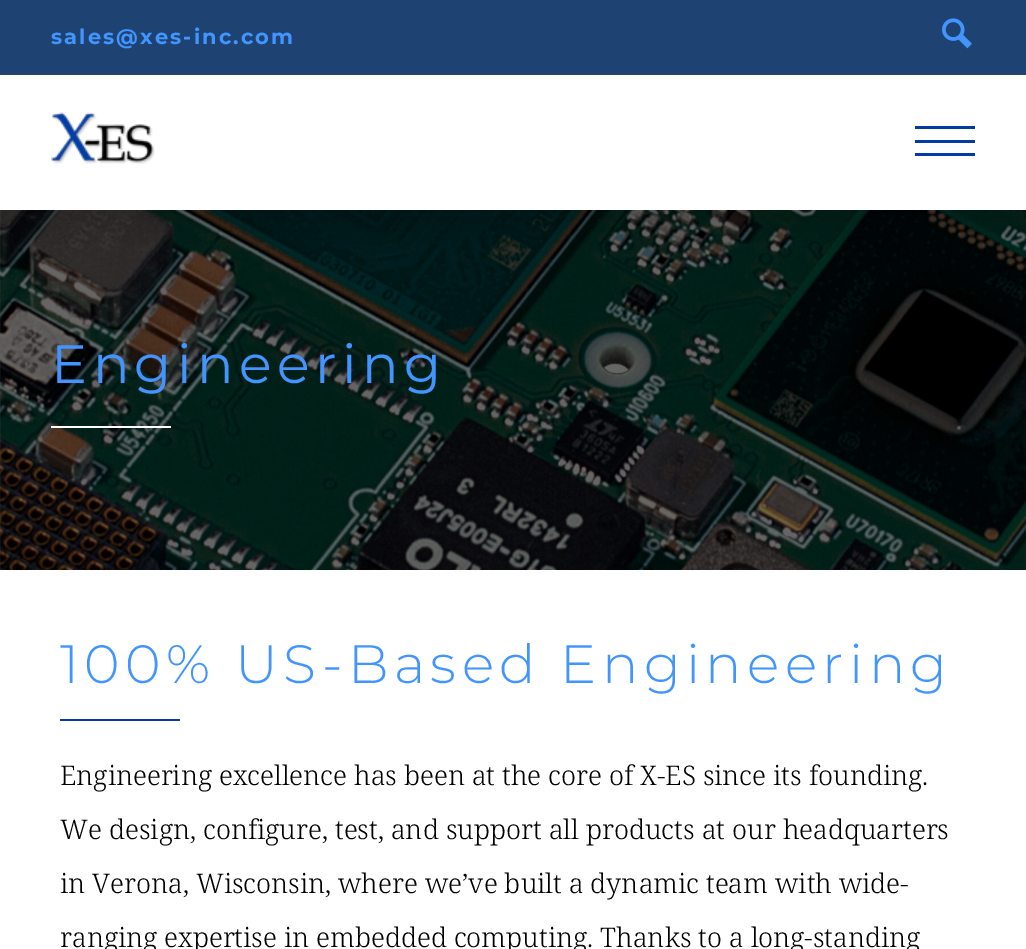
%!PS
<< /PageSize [1026 949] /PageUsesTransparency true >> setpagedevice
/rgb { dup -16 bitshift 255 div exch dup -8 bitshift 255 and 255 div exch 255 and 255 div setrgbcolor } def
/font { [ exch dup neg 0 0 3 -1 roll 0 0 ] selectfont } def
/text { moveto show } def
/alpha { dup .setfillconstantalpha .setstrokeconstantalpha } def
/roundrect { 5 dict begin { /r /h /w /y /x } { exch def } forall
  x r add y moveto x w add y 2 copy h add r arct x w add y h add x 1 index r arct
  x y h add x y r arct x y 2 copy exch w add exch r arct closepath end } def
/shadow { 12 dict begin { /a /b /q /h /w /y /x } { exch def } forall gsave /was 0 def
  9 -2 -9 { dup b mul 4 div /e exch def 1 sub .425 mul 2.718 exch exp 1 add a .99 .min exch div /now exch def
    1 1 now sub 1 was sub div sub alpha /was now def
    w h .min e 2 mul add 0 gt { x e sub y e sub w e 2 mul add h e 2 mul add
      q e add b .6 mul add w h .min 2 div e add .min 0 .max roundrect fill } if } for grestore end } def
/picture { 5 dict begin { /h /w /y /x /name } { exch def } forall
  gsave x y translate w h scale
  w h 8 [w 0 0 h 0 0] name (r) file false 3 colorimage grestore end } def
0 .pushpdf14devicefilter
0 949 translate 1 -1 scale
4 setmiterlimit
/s1 { /NotoSerif-Light 27 font 16#000000 rgb } def
16#FFFFFF rgb
0 0 1026 949 rectfill
(pic3.raw) 0 210 1026 360 picture
gsave
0 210 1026 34 rectclip
16#000000 rgb
-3 80 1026 135 0 22.5 0.2 shadow
grestore
(pic1.raw) 51 112 104 52 picture
16#013CA5 rgb
915 126 60 3 rectfill
915 140 60 3 rectfill
915 153 60 3 rectfill
16#1E4372 rgb
0 0 1026 75 rectfill
/Montserrat-Bold 21 font
16#4295FE rgb
51 44 moveto 2.1 0 (sales@xes-inc.com) ashow
(pic2.raw) 942 18 30 31 picture
0.6 alpha
16#000000 rgb
0 210 1026 360 rectfill
/Montserrat-Regular 54 font
1 alpha
16#4295FE rgb
51 383 moveto 5.4 0 (Engineering) ashow
16#FFFFFF rgb
51 426 120 2 rectfill
/Montserrat-Light 54 font
16#4295FE rgb
60 683 moveto 5.4 0 (100% US-Based Engineering) ashow
16#013CA5 rgb
60 719 120 2 rectfill
s1
(Engineering excellence has been at the core of X-ES since its founding.) 60 785 text
(We design, configure, test, and support all products at our headquarters) 60 839 text
(in Verona, Wisconsin, where we’ve built a dynamic team with wide-) 60 893 text
(ranging expertise in embedded computing. Thanks to a long-standing) 60 947 text
.poppdf14devicefilter showpage
